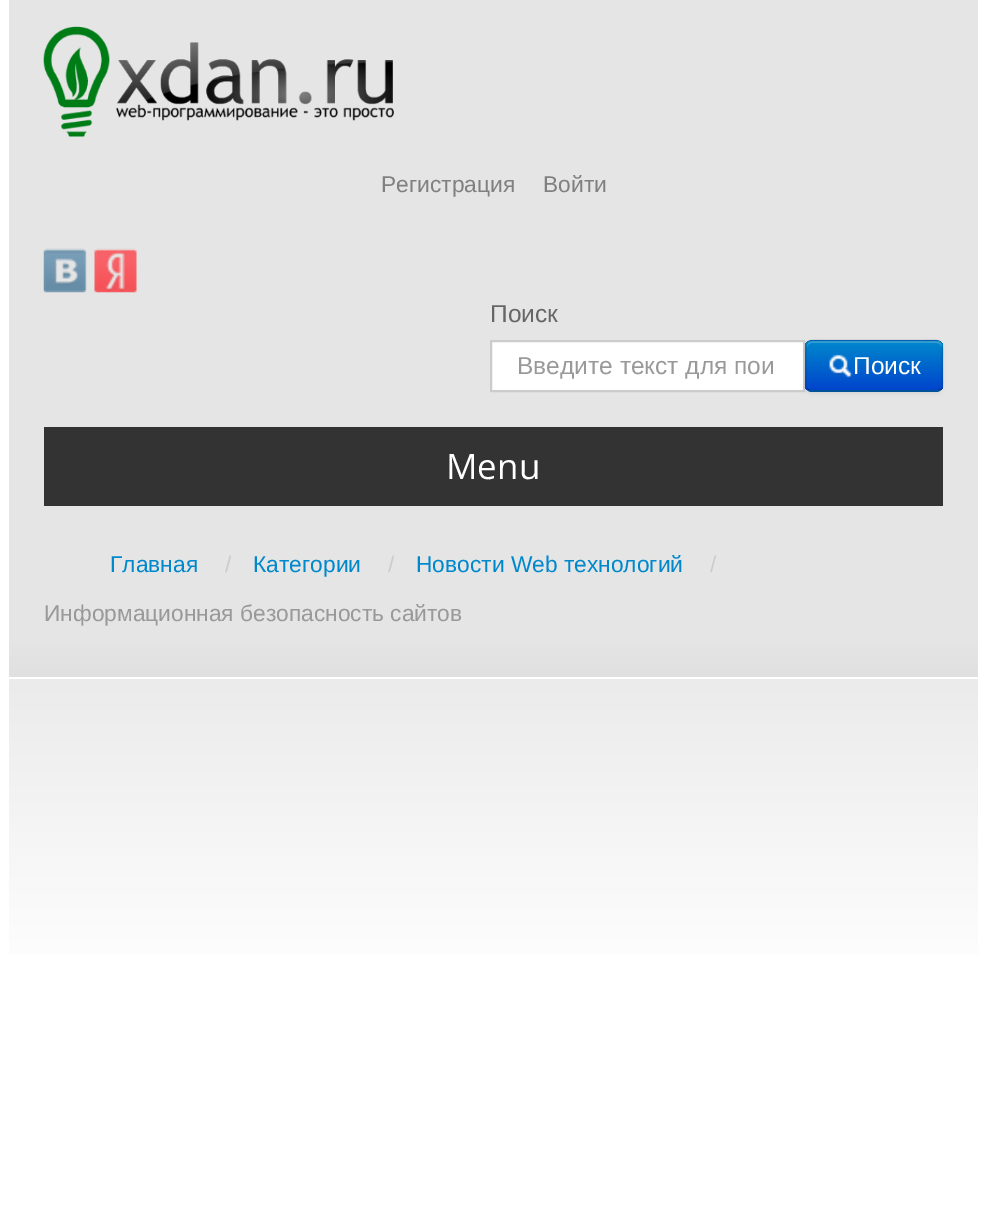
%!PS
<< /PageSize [987 1213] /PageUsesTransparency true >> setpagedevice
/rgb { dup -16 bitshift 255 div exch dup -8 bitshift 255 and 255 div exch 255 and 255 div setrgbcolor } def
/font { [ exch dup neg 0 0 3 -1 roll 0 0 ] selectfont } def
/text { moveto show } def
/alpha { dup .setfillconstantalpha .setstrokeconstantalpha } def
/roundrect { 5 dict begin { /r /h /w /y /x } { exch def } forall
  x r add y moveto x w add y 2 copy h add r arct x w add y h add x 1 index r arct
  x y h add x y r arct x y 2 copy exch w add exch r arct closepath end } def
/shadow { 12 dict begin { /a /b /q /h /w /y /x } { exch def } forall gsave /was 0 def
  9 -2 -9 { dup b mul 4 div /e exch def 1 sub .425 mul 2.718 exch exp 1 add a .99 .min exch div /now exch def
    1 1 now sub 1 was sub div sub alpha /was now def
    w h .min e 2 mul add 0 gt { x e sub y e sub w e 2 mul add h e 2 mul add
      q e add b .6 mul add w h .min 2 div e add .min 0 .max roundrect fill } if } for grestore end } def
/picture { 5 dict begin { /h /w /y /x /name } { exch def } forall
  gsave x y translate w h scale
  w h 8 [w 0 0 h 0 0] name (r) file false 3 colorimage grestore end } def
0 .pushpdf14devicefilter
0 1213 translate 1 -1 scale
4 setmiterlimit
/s1 { /LiberationSans-Regular 22.75 font 16#808080 rgb } def
/s2 { /LiberationSans-Regular 24.5 font 16#666666 rgb } def
/s3 { /LiberationSans-Regular 24.5 font 16#999999 rgb } def
/s4 { /LiberationSans-Regular 24.5 font 16#FFFFFF rgb } def
/s5 { /OpenSans-Regular 35 font 16#FFFFFF rgb } def
/s6 { /LiberationSans-Regular 22.75 font 16#0088CC rgb } def
/s7 { /LiberationSans-Regular 22.75 font 16#CCCCCC rgb } def
/s8 { /LiberationSans-Regular 22.75 font 16#999999 rgb } def
16#FFFFFF rgb
0 0 987 1213 rectfill
16#E5E5E5 rgb
9 0 969 642 rectfill
(pic1.raw) 43 26 351 111 picture
s1
(Регистрация) 381 192 text
(Войти) 543 192 text
(pic2.raw) 43 248 44 45 picture
(pic3.raw) 94 248 43 45 picture
s2
(Поиск) 490 322 text
16#FFFFFF rgb
491 341 moveto 804 341 lineto 804 391 lineto 491 391 lineto closepath gsave fill grestore
16#CCCCCC rgb
2 setlinewidth
stroke
s3
(Введите текст для пои) 517 374 text
16#000000 rgb
805 341 138 53 7 2 0.05 shadow
16#006DCC rgb
805 340 138 52 7 roundrect fill
gsave
805 340 138 52 7 roundrect clip newpath
gsave 805 341 moveto 943 341 lineto 943 390 lineto 805 390 lineto closepath clip newpath
<< /ShadingType 2 /ColorSpace /DeviceRGB /Coords [874 341 874 390] /Extend [true true] /Function << /FunctionType 2 /Domain [0 1] /C0 [0 0.533 0.8] /C1 [0 0.267 0.8] /N 1 >> >> shfill grestore
grestore
0.2 alpha
16#FFFFFF rgb
812 343 moveto 936 343 lineto 939 343 942 345 942 348 curveto 942 346 lineto 942 343 940 341 937 341 curveto 812 341 lineto 809 341 807 343 807 346 curveto 807 348 lineto 807 345 809 343 812 343 curveto closepath fill
0.25 alpha
16#000000 rgb
1.8 setlinewidth
940.5 389.5 moveto 939.5 390.5 938 391 936 391 curveto 812 391 lineto 810.5 391 809 390.5 807.5 389.5 curveto stroke
0.1 alpha
807.5 389.5 moveto 805 386.5 806 382 806 378.5 curveto 806 366 lineto 806 336.5 802 340.5 832.5 340.5 curveto 915.5 340.5 lineto 946.5 340.5 942.5 336.5 942.5 366 curveto 942.5 378.5 lineto 942.5 382 943.5 386.5 940.5 389.5 curveto stroke
1 alpha
(pic4.raw) 829 354 24 24 picture
s4
(Поиск) 853 374 text
16#333333 rgb
44 427 899 79 rectfill
s5
(Menu) 446 479 text
s6
(Главная) 110 572 text
s7
(/) 225 572 text
s6
(Категории) 253 572 text
s7
(/) 388 572 text
s6
(Новости Web технологий) 416 572 text
s7
(/) 710 572 text
s8
(Информационная безопасность сайтов) 44 621 text
gsave 9 642 moveto 978 642 lineto 978 677 lineto 9 677 lineto closepath clip newpath
<< /ShadingType 2 /ColorSpace /DeviceRGB /Coords [494 642 494 677] /Extend [true true] /Function << /FunctionType 2 /Domain [0 1] /C0 [0.898 0.898 0.898] /C1 [0.878 0.878 0.878] /N 1 >> >> shfill grestore
gsave 9 679 moveto 978 679 lineto 978 955 lineto 9 955 lineto closepath clip newpath
<< /ShadingType 2 /ColorSpace /DeviceRGB /Coords [494 679 494 994] /Extend [true true] /Function << /FunctionType 2 /Domain [0 1] /C0 [0.922 0.922 0.922] /C1 [1 1 1] /N 1 >> >> shfill grestore
.poppdf14devicefilter showpage
